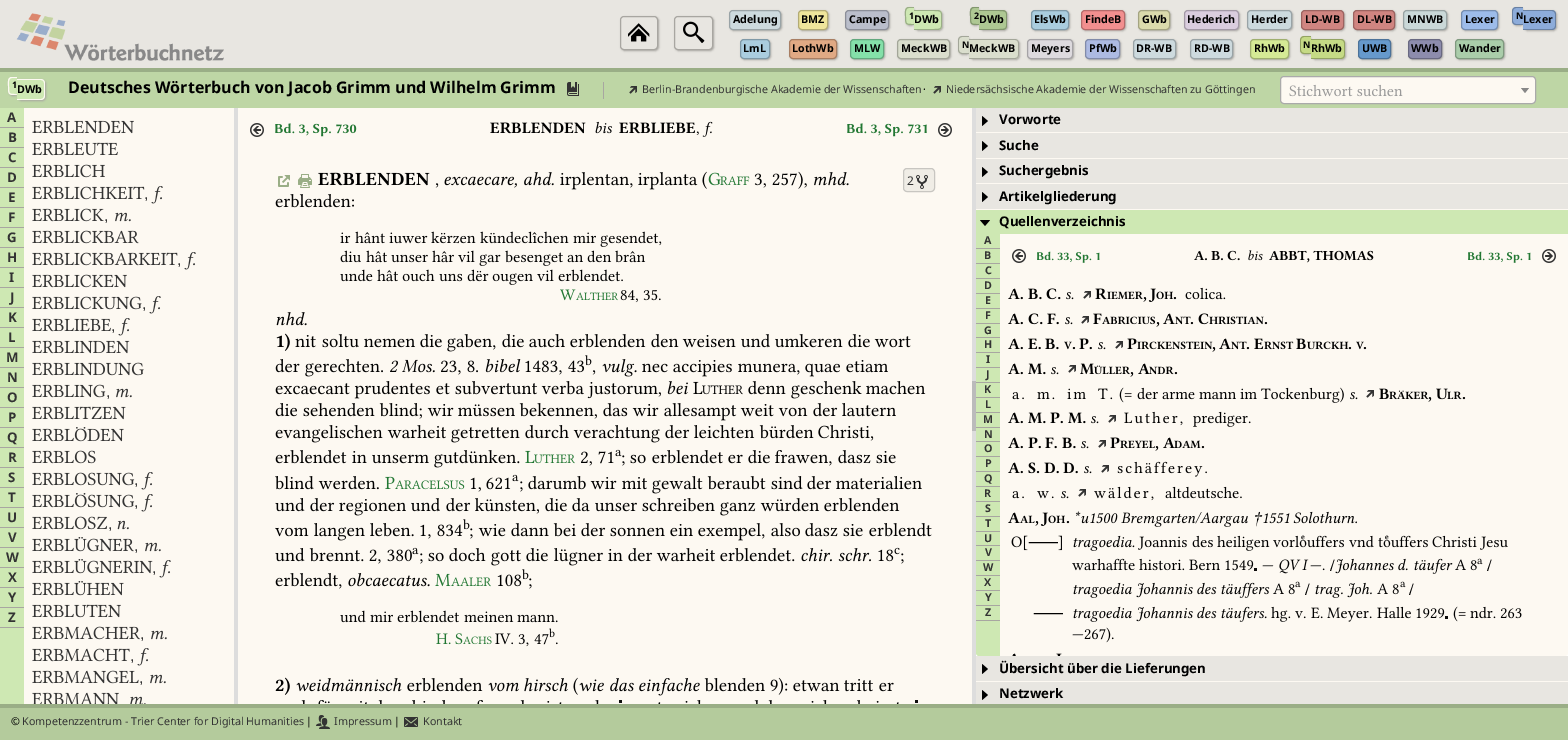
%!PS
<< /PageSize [1568 740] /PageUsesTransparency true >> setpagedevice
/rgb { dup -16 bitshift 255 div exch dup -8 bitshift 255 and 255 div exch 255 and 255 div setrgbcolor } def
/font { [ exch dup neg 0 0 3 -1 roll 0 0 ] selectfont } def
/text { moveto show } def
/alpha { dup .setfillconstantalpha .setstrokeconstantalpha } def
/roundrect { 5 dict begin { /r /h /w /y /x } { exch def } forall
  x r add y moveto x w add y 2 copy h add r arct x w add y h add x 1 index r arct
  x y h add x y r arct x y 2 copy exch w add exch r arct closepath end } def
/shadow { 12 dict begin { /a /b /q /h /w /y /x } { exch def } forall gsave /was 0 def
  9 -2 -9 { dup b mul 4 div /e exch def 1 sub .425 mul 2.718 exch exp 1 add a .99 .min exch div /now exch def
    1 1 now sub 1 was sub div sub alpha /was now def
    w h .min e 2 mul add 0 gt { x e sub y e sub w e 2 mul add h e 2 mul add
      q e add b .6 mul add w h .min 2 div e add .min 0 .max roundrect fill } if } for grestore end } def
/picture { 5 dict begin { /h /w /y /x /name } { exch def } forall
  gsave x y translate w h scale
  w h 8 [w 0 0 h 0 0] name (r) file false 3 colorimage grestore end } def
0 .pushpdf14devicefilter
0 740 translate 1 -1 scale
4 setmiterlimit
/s1 { /NotoSans-Bold 10.7 font 16#000000 rgb } def
/s2 { /NotoSans-Bold 9 font 16#000000 rgb } def
/s3 { /NotoSans-Bold 16 font 16#000000 rgb } def
/s4 { /NotoSans-Regular 10.7 font 16#333333 rgb } def
/s5 { /NotoSans-Regular 10.7 font 16#000000 rgb } def
/s6 { /NotoSans-Bold 13.3 font 16#333333 rgb } def
/s7 { /LiberationSans-Regular 16 font 16#333333 rgb } def
/s8 { /NotoSans-Regular 12 font 16#333333 rgb } def
/s9 { /NotoSans-Bold 13.3 font 16#000000 rgb } def
/s10 { /NotoSans-Bold 10.7 font 16#333333 rgb } def
/s11 { /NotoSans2-Regular 16 font 16#000000 rgb } def
16#9AAE86 rgb
0 0 1568 740 rectfill
16#E8E6E1 rgb
0 0 1568 68 rectfill
(pic1.raw) 16 13 208 48 picture
16#A8A6A1 rgb
621 17 38 34 4 1 1 shadow
16#E8E6E1 rgb
620.5 16.5 37 33 3.5 roundrect gsave fill grestore
16#A8A6A1 rgb
stroke
(pic2.raw) 628 23 22 19 picture
675 17 39 34 4 1 1 shadow
16#E8E6E1 rgb
674.5 16.5 38 33 3.5 roundrect gsave fill grestore
16#A8A6A1 rgb
stroke
(pic3.raw) 683 21 22 22 picture
730 11 52 20 4 1 1 shadow
16#CDDADE rgb
729.5 10.5 51 19 3.5 roundrect gsave fill grestore
16#99A3A6 rgb
stroke
s1
(Adelung) 733 23 text
16#A8A6A1 rgb
799 11 30 20 4 1 1 shadow
16#EFE59B rgb
798.5 10.5 29 19 3.5 roundrect gsave fill grestore
16#B3AB74 rgb
stroke
s1
(BMZ) 801 23 text
16#A8A6A1 rgb
846 11 44 20 4 1 1 shadow
16#BABECB rgb
845.5 10.5 43 19 3.5 roundrect gsave fill grestore
16#8B8E98 rgb
stroke
s1
(Campe) 849 23 text
16#A8A6A1 rgb
906 8 9 18 4 1 1 shadow
16#CEE8B3 rgb
909 7 moveto 914 7 lineto 914 25 lineto 909 25 lineto 907 25 905 23 905 21 curveto 905 11 lineto 905 9 907 7 909 7 curveto closepath fill
16#9AAE86 rgb
909 7 moveto 914 7 lineto 914 25 lineto 905.5 25 905 25 905 16 curveto 905 13 904 7 909 7 curveto closepath 909 8 moveto 914 8 lineto 914 24 lineto 906 24 906 24.5 906 16 curveto 906 13.5 905 8 909 8 curveto closepath eofill
16#A8A6A1 rgb
915 11 28 20 4 1 1 shadow
s2
(1) 909 19 text
16#CEE8B3 rgb
914 10 moveto 938 10 lineto 940 10 942 12 942 14 curveto 942 26 lineto 942 28 940 30 938 30 curveto 914 30 lineto closepath fill
16#9AAE86 rgb
914 10 moveto 938 10 lineto 940 10 942 12 942 14 curveto 942 26 lineto 942 28 940 30 938 30 curveto 914 30 lineto closepath 914 11 moveto 934 11 lineto 942.5 11 941 12 941 20 curveto 941 28 942.5 29 934 29 curveto 914 29 lineto closepath eofill
s1
(DWb) 914 23 text
16#A8A6A1 rgb
971 8 9 18 4 1 1 shadow
16#AEC893 rgb
974 7 moveto 979 7 lineto 979 25 lineto 974 25 lineto 972 25 970 23 970 21 curveto 970 11 lineto 970 9 972 7 974 7 curveto closepath fill
16#82966E rgb
974 7 moveto 979 7 lineto 979 25 lineto 970.5 25 970 25 970 16 curveto 970 13 969 7 974 7 curveto closepath 974 8 moveto 979 8 lineto 979 24 lineto 971 24 971 24.5 971 16 curveto 971 13.5 970 8 974 8 curveto closepath eofill
16#A8A6A1 rgb
980 11 28 20 4 1 1 shadow
s2
(2) 974 19 text
16#AEC893 rgb
979 10 moveto 1003 10 lineto 1005 10 1007 12 1007 14 curveto 1007 26 lineto 1007 28 1005 30 1003 30 curveto 979 30 lineto closepath fill
16#82966E rgb
979 10 moveto 1003 10 lineto 1005 10 1007 12 1007 14 curveto 1007 26 lineto 1007 28 1005 30 1003 30 curveto 979 30 lineto closepath 979 11 moveto 999 11 lineto 1007.5 11 1006 12 1006 20 curveto 1006 28 1007.5 29 999 29 curveto 979 29 lineto closepath eofill
s1
(DWb) 979 23 text
16#A8A6A1 rgb
1032 11 38 20 4 1 1 shadow
16#AACDDF rgb
1031.5 10.5 37 19 3.5 roundrect gsave fill grestore
16#7F99A7 rgb
stroke
s1
(ElsWb) 1034 23 text
16#A8A6A1 rgb
1082 11 44 20 4 1 1 shadow
16#F28F8F rgb
1081.5 10.5 43 19 3.5 roundrect gsave fill grestore
16#B56B6B rgb
stroke
s1
(FindeB) 1085 23 text
16#A8A6A1 rgb
1139 11 32 20 4 1 1 shadow
16#DBDBAC rgb
1138.5 10.5 31 19 3.5 roundrect gsave fill grestore
16#A4A481 rgb
stroke
s1
(GWb) 1142 23 text
16#A8A6A1 rgb
1185 11 55 20 4 1 1 shadow
16#DACDDE rgb
1184.5 10.5 54 19 3.5 roundrect gsave fill grestore
16#A399A6 rgb
stroke
s1
(Hederich) 1187 23 text
16#A8A6A1 rgb
1248 11 45 20 4 1 1 shadow
16#CCDADE rgb
1247.5 10.5 44 19 3.5 roundrect gsave fill grestore
16#99A3A6 rgb
stroke
s1
(Herder) 1251 23 text
16#A8A6A1 rgb
1302 11 43 20 4 1 1 shadow
16#D08581 rgb
1301.5 10.5 42 19 3.5 roundrect gsave fill grestore
16#9C6360 rgb
stroke
s1
(LD-WB) 1305 23 text
16#A8A6A1 rgb
1354 11 42 20 4 1 1 shadow
16#D08581 rgb
1353.5 10.5 41 19 3.5 roundrect gsave fill grestore
16#9C6360 rgb
stroke
s1
(DL-WB) 1357 23 text
16#A8A6A1 rgb
1404 11 44 20 4 1 1 shadow
16#CAD8D8 rgb
1403.5 10.5 43 19 3.5 roundrect gsave fill grestore
16#97A2A2 rgb
stroke
s1
(MNWB) 1407 23 text
16#A8A6A1 rgb
1462 11 37 20 4 1 1 shadow
16#9DBCEA rgb
1461.5 10.5 36 19 3.5 roundrect gsave fill grestore
16#758DAF rgb
stroke
s1
(Lexer) 1465 23 text
16#A8A6A1 rgb
1513 8 11 18 4 1 1 shadow
16#8DACDA rgb
1516 7 moveto 1523 7 lineto 1523 25 lineto 1516 25 lineto 1514 25 1512 23 1512 21 curveto 1512 11 lineto 1512 9 1514 7 1516 7 curveto closepath fill
16#6981A3 rgb
1516 7 moveto 1523 7 lineto 1523 25 lineto 1516 25 lineto 1514 25 1512 23 1512 21 curveto 1512 11 lineto 1512 9 1514 7 1516 7 curveto closepath 1516 8 moveto 1523 8 lineto 1523 24 lineto 1516 24 lineto 1514.5 24 1513 22.5 1513 21 curveto 1513 11 lineto 1513 9.5 1514.5 8 1516 8 curveto closepath eofill
16#A8A6A1 rgb
1524 11 33 20 4 1 1 shadow
s2
(N) 1516 19 text
16#8DACDA rgb
1523 10 moveto 1552 10 lineto 1554 10 1556 12 1556 14 curveto 1556 26 lineto 1556 28 1554 30 1552 30 curveto 1523 30 lineto closepath fill
16#6981A3 rgb
1523 10 moveto 1552 10 lineto 1554 10 1556 12 1556 14 curveto 1556 26 lineto 1556 28 1554 30 1552 30 curveto 1523 30 lineto closepath 1523 11 moveto 1552 11 lineto 1553.5 11 1555 12.5 1555 14 curveto 1555 26 lineto 1555 27.5 1553.5 29 1552 29 curveto 1523 29 lineto closepath eofill
s1
(Lexer) 1523 23 text
16#A8A6A1 rgb
741 40 30 20 4 1 1 shadow
16#AACDDF rgb
740.5 39.5 29 19 3.5 roundrect gsave fill grestore
16#7F99A7 rgb
stroke
s1
(LmL) 743 52 text
16#A8A6A1 rgb
790 40 48 20 4 1 1 shadow
16#E0A984 rgb
789.5 39.5 47 19 3.5 roundrect gsave fill grestore
16#A87E63 rgb
stroke
s1
(LothWb) 792 52 text
16#A8A6A1 rgb
851 40 34 20 4 1 1 shadow
16#84E0A9 rgb
850.5 39.5 33 19 3.5 roundrect gsave fill grestore
16#63A87E rgb
stroke
s1
(MLW) 854 52 text
16#A8A6A1 rgb
898 40 53 20 4 1 1 shadow
16#DADECD rgb
897.5 39.5 52 19 3.5 roundrect gsave fill grestore
16#A3A699 rgb
stroke
s1
(MeckWB) 901 52 text
16#A8A6A1 rgb
959 37 11 18 4 1 1 shadow
16#DADECD rgb
962 36 moveto 969 36 lineto 969 54 lineto 962 54 lineto 960 54 958 52 958 50 curveto 958 40 lineto 958 38 960 36 962 36 curveto closepath fill
16#A3A699 rgb
962 36 moveto 969 36 lineto 969 54 lineto 962 54 lineto 960 54 958 52 958 50 curveto 958 40 lineto 958 38 960 36 962 36 curveto closepath 962 37 moveto 969 37 lineto 969 53 lineto 962 53 lineto 960.5 53 959 51.5 959 50 curveto 959 40 lineto 959 38.5 960.5 37 962 37 curveto closepath eofill
16#A8A6A1 rgb
970 40 50 20 4 1 1 shadow
s2
(N) 962 48 text
16#DADECD rgb
969 39 moveto 1015 39 lineto 1017 39 1019 41 1019 43 curveto 1019 55 lineto 1019 57 1017 59 1015 59 curveto 969 59 lineto closepath fill
16#A3A699 rgb
969 39 moveto 1015 39 lineto 1017 39 1019 41 1019 43 curveto 1019 55 lineto 1019 57 1017 59 1015 59 curveto 969 59 lineto closepath 969 40 moveto 1015 40 lineto 1017 40 1018 41 1018 43 curveto 1018 55 lineto 1018 57 1017 58 1015 58 curveto 969 58 lineto closepath eofill
s1
(MeckWB) 969 52 text
16#A8A6A1 rgb
1028 40 46 20 4 1 1 shadow
16#DDDADE rgb
1027.5 39.5 45 19 3.5 roundrect gsave fill grestore
16#A5A3A6 rgb
stroke
s1
(Meyers) 1031 52 text
16#A8A6A1 rgb
1086 40 35 20 4 1 1 shadow
16#ADBAE2 rgb
1085.5 39.5 34 19 3.5 roundrect gsave fill grestore
16#818BA9 rgb
stroke
s1
(PfWb) 1089 52 text
16#A8A6A1 rgb
1134 40 43 20 4 1 1 shadow
16#CDDADE rgb
1133.5 39.5 42 19 3.5 roundrect gsave fill grestore
16#99A3A6 rgb
stroke
s1
(DR-WB) 1136 52 text
16#A8A6A1 rgb
1191 40 43 20 4 1 1 shadow
16#CDDADE rgb
1190.5 39.5 42 19 3.5 roundrect gsave fill grestore
16#99A3A6 rgb
stroke
s1
(RD-WB) 1194 52 text
16#A8A6A1 rgb
1251 40 39 20 4 1 1 shadow
16#D5EA95 rgb
1250.5 39.5 38 19 3.5 roundrect gsave fill grestore
16#9FAF6F rgb
stroke
s1
(RhWb) 1254 52 text
16#A8A6A1 rgb
1301 37 11 18 4 1 1 shadow
16#C5DA85 rgb
1304 36 moveto 1311 36 lineto 1311 54 lineto 1304 54 lineto 1302 54 1300 52 1300 50 curveto 1300 40 lineto 1300 38 1302 36 1304 36 curveto closepath fill
16#93A363 rgb
1304 36 moveto 1311 36 lineto 1311 54 lineto 1304 54 lineto 1302 54 1300 52 1300 50 curveto 1300 40 lineto 1300 38 1302 36 1304 36 curveto closepath 1304 37 moveto 1311 37 lineto 1311 53 lineto 1304 53 lineto 1302.5 53 1301 51.5 1301 50 curveto 1301 40 lineto 1301 38.5 1302.5 37 1304 37 curveto closepath eofill
16#A8A6A1 rgb
1312 40 34 20 4 1 1 shadow
s2
(N) 1303 48 text
16#C5DA85 rgb
1311 39 moveto 1341 39 lineto 1343 39 1345 41 1345 43 curveto 1345 55 lineto 1345 57 1343 59 1341 59 curveto 1311 59 lineto closepath fill
16#93A363 rgb
1311 39 moveto 1341 39 lineto 1343 39 1345 41 1345 43 curveto 1345 55 lineto 1345 57 1343 59 1341 59 curveto 1311 59 lineto closepath 1311 40 moveto 1341 40 lineto 1342.5 40 1344 41.5 1344 43 curveto 1344 55 lineto 1344 56.5 1342.5 58 1341 58 curveto 1311 58 lineto closepath eofill
s1
(RhWb) 1311 52 text
16#A8A6A1 rgb
1359 40 33 20 4 1 1 shadow
16#6699CC rgb
1358.5 39.5 32 19 3.5 roundrect gsave fill grestore
16#4C7299 rgb
stroke
s1
(UWB) 1362 52 text
16#A8A6A1 rgb
1409 40 34 20 4 1 1 shadow
16#8D8CAD rgb
1408.5 39.5 33 19 3.5 roundrect gsave fill grestore
16#696981 rgb
stroke
s1
(WWb) 1411 52 text
16#A8A6A1 rgb
1456 40 49 20 4 1 1 shadow
16#AACDAA rgb
1455.5 39.5 48 19 3.5 roundrect gsave fill grestore
16#7F997F rgb
stroke
s1
(Wander) 1459 52 text
16#BED6A5 rgb
0 72 1568 36 rectfill
16#A8A6A1 rgb
9 78 9 18 4 1 1 shadow
16#CEE8B3 rgb
12 77 moveto 17 77 lineto 17 95 lineto 12 95 lineto 10 95 8 93 8 91 curveto 8 81 lineto 8 79 10 77 12 77 curveto closepath fill
16#FDF9F2 rgb
12 77 moveto 17 77 lineto 17 95 lineto 8.5 95 8 95 8 86 curveto 8 83 7 77 12 77 curveto closepath 12 78 moveto 17 78 lineto 17 94 lineto 9 94 9 94.5 9 86 curveto 9 83.5 8 78 12 78 curveto closepath eofill
16#A8A6A1 rgb
18 80 28 21 4 1 1 shadow
s2
(1) 12 88 text
16#CEE8B3 rgb
17 79 moveto 41 79 lineto 43 79 45 81 45 83 curveto 45 96 lineto 45 98 43 100 41 100 curveto 17 100 lineto closepath fill
16#FDF9F2 rgb
17 79 moveto 41 79 lineto 43 79 45 81 45 83 curveto 45 96 lineto 45 98 43 100 41 100 curveto 17 100 lineto closepath 17 80 moveto 41 80 lineto 42.5 80 44 81.5 44 83 curveto 44 96 lineto 44 97.5 42.5 99 41 99 curveto 17 99 lineto closepath eofill
s1
(DWb) 17 93 text
s3
(Deutsches Wörterbuch von Jacob Grimm und Wilhelm Grimm) 68 93 text
(pic4.raw) 567 82 12 14 picture
16#A8A6A1 rgb
603 82 1 17 rectfill
(pic5.raw) 629 86 8 8 picture
s4
(Berlin-Brandenburgische Akademie der Wissenschaften) 642 93 text
s5
(·) 923 93 text
(pic5.raw) 933 86 8 8 picture
s4
(Niedersächsische Akademie der Wissenschaften zu Göttingen) 946 93 text
16#FDF9F2 rgb
1280.5 76.5 255 27 3.5 roundrect gsave fill grestore
16#AAAAAA rgb
stroke
(pic6.raw) 1289 84 114 13 picture
16#888888 rgb
1521 88 moveto 1529 88 lineto 1525 93 lineto closepath fill
16#DDDDDD rgb
234 108 4 596 rectfill
972 108 4 596 rectfill
16#BBBBBB rgb
972 381 4 50 rectfill
16#CEE8B3 rgb
0 108 24 596 rectfill
16#A8A6A1 rgb
0 127 24 1 rectfill
s6
(A) 7 122 text
16#A8A6A1 rgb
0 147 24 1 rectfill
s6
(B) 8 142 text
16#A8A6A1 rgb
0 167 24 1 rectfill
s6
(C) 8 162 text
16#A8A6A1 rgb
0 187 24 1 rectfill
s6
(D) 7 182 text
16#A8A6A1 rgb
0 207 24 1 rectfill
s6
(E) 8 202 text
16#A8A6A1 rgb
0 227 24 1 rectfill
s6
(F) 8 222 text
16#A8A6A1 rgb
0 247 24 1 rectfill
s6
(G) 7 242 text
16#A8A6A1 rgb
0 267 24 1 rectfill
s6
(H) 7 262 text
16#A8A6A1 rgb
0 287 24 1 rectfill
s6
(I) 9 282 text
16#A8A6A1 rgb
0 307 24 1 rectfill
s6
(J) 10 302 text
16#A8A6A1 rgb
0 327 24 1 rectfill
s6
(K) 8 322 text
16#A8A6A1 rgb
0 347 24 1 rectfill
s6
(L) 8 342 text
16#A8A6A1 rgb
0 367 24 1 rectfill
s6
(M) 6 362 text
16#A8A6A1 rgb
0 387 24 1 rectfill
s6
(N) 7 382 text
16#A8A6A1 rgb
0 407 24 1 rectfill
s6
(O) 7 402 text
16#A8A6A1 rgb
0 427 24 1 rectfill
s6
(P) 8 422 text
16#A8A6A1 rgb
0 447 24 1 rectfill
s6
(Q) 7 442 text
16#A8A6A1 rgb
0 467 24 1 rectfill
s6
(R) 8 462 text
16#A8A6A1 rgb
0 487 24 1 rectfill
s6
(S) 8 482 text
16#A8A6A1 rgb
0 507 24 1 rectfill
s6
(T) 8 502 text
16#A8A6A1 rgb
0 527 24 1 rectfill
s6
(U) 7 522 text
16#A8A6A1 rgb
0 547 24 1 rectfill
s6
(V) 8 542 text
16#A8A6A1 rgb
0 567 24 1 rectfill
s6
(W) 6 562 text
16#A8A6A1 rgb
0 587 24 1 rectfill
s6
(X) 8 582 text
16#A8A6A1 rgb
0 607 24 1 rectfill
s6
(Y) 8 602 text
16#A8A6A1 rgb
0 627 24 1 rectfill
s6
(Z) 8 622 text
16#FDF9F2 rgb
24 108 210 596 rectfill
(pic7.raw) 32 120 102 14 picture
(pic8.raw) 32 142 86 14 picture
(pic9.raw) 32 164 73 14 picture
(pic10.raw) 32 186 113 14 picture
s7
(,) 144 199 text
(pic11.raw) 151 186 12 18 picture
(pic12.raw) 32 208 72 14 picture
(,) 104 221 text
(pic13.raw) 115 212 16 10 picture
(pic14.raw) 32 230 107 14 picture
(pic15.raw) 32 252 146 14 picture
(,) 177 265 text
(pic11.raw) 184 252 12 18 picture
(pic16.raw) 32 274 95 14 picture
(pic17.raw) 32 296 110 14 picture
(,) 142 309 text
(pic11.raw) 149 296 12 18 picture
(pic18.raw) 32 318 79 14 picture
(,) 111 331 text
(pic11.raw) 118 318 12 18 picture
(pic19.raw) 32 340 98 14 picture
(pic20.raw) 32 362 112 14 picture
(pic21.raw) 32 384 74 14 picture
(,) 106 397 text
(pic13.raw) 116 388 16 10 picture
(pic22.raw) 32 406 94 14 picture
(pic23.raw) 32 427 92 15 picture
(pic24.raw) 32 450 64 14 picture
(pic25.raw) 32 472 103 14 picture
(,) 134 485 text
(pic11.raw) 141 472 12 18 picture
(pic26.raw) 32 493 103 15 picture
(,) 134 507 text
(pic11.raw) 141 494 12 18 picture
(pic27.raw) 32 516 76 14 picture
(,) 108 529 text
(pic28.raw) 117 520 12 10 picture
(pic29.raw) 32 537 102 15 picture
(,) 134 551 text
(pic13.raw) 145 542 16 10 picture
(pic30.raw) 32 559 121 15 picture
(,) 152 573 text
(pic11.raw) 159 560 12 18 picture
(pic31.raw) 32 581 92 15 picture
(pic32.raw) 32 604 89 14 picture
(pic33.raw) 32 626 108 14 picture
(,) 140 639 text
(pic13.raw) 151 630 16 10 picture
(pic34.raw) 32 648 98 14 picture
(,) 130 661 text
(pic11.raw) 137 648 12 18 picture
(pic35.raw) 32 670 107 14 picture
(,) 139 683 text
(pic13.raw) 150 674 16 10 picture
(pic36.raw) 32 692 87 12 picture
(pic37.raw) 130 696 16 8 picture
16#FDF9F2 rgb
238 108 734 596 rectfill
(pic38.raw) 250 123 14 14 picture
(pic39.raw) 275 123 82 14 picture
(pic40.raw) 490 122 96 12 picture
(pic41.raw) 595 121 18 13 picture
(pic42.raw) 619 122 77 12 picture
(pic43.raw) 696 131 3 4 picture
(pic44.raw) 702 121 11 16 picture
(pic45.raw) 847 123 80 14 picture
(pic46.raw) 938 123 14 14 picture
(pic47.raw) 278 175 12 12 picture
(pic48.raw) 298 174 14 14 picture
(pic49.raw) 318 172 112 14 picture
(pic50.raw) 444 176 73 12 picture
(pic51.raw) 524 172 30 14 picture
(pic52.raw) 560 172 73 18 picture
(pic53.raw) 638 172 60 18 picture
(pic54.raw) 702 171 5 18 picture
(pic55.raw) 708 172 13 14 picture
(pic56.raw) 720 176 30 10 picture
(pic57.raw) 754 173 12 15 picture
(pic58.raw) 772 173 25 13 picture
(pic59.raw) 798 171 9 18 picture
(pic60.raw) 814 172 35 14 picture
16#F0EDE6 rgb
903.5 168.5 31 23 3.5 roundrect gsave fill grestore
16#C8C6C1 rgb
stroke
s8
(2) 907 185 text
(pic61.raw) 916 175 12 14 picture
(pic62.raw) 435 183 4 5 picture
(pic63.raw) 275 194 79 14 picture
(pic64.raw) 340 232 11 11 picture
(pic65.raw) 355 231 30 13 picture
(pic66.raw) 389 232 39 12 picture
(pic67.raw) 431 231 45 13 picture
(pic68.raw) 480 231 89 13 picture
(pic69.raw) 573 232 23 11 picture
(pic70.raw) 600 231 62 16 picture
(pic71.raw) 340 250 21 13 picture
(pic72.raw) 366 250 21 13 picture
(pic73.raw) 391 254 37 9 picture
(pic74.raw) 432 250 22 13 picture
(pic75.raw) 458 250 17 13 picture
(pic76.raw) 479 254 22 12 picture
(pic77.raw) 505 250 58 16 picture
(pic78.raw) 567 254 16 9 picture
(pic79.raw) 587 250 25 13 picture
(pic80.raw) 615 250 31 13 picture
(pic81.raw) 340 269 33 13 picture
(pic72.raw) 377 269 21 13 picture
(pic82.raw) 402 269 33 13 picture
(pic83.raw) 439 273 24 9 picture
(pic84.raw) 467 269 22 13 picture
(pic85.raw) 492 273 41 12 picture
(pic75.raw) 537 269 17 13 picture
(pic86.raw) 558 269 65 13 picture
(pic87.raw) 560 289 16 12 picture
(pic88.raw) 576 292 42 9 picture
(pic89.raw) 620 290 18 13 picture
(pic90.raw) 643 290 15 11 picture
(pic91.raw) 659 298 2 3 picture
(pic92.raw) 276 312 31 14 picture
(pic93.raw) 276 333 14 18 picture
(pic94.raw) 295 335 21 13 picture
(pic95.raw) 322 334 37 14 picture
(pic96.raw) 364 338 52 10 picture
(pic97.raw) 420 334 22 14 picture
(pic98.raw) 447 334 49 18 picture
(pic97.raw) 502 334 22 14 picture
(pic99.raw) 529 334 36 14 picture
(pic100.raw) 570 334 76 14 picture
(pic101.raw) 651 334 28 14 picture
(pic102.raw) 682 335 54 13 picture
(pic103.raw) 741 334 29 14 picture
(pic104.raw) 775 334 68 14 picture
(pic97.raw) 848 334 22 14 picture
(pic105.raw) 874 336 37 12 picture
(pic106.raw) 275 359 25 14 picture
(pic107.raw) 305 359 78 18 picture
(pic108.raw) 390 360 8 12 picture
(pic109.raw) 402 359 33 14 picture
(pic110.raw) 441 360 20 15 picture
(pic111.raw) 467 360 8 13 picture
(pic112.raw) 476 370 2 3 picture
(pic113.raw) 485 359 36 14 picture
(pic114.raw) 525 360 37 15 picture
(pic115.raw) 568 360 17 13 picture
(pic116.raw) 585 355 7 11 picture
(pic62.raw) 592 370 4 5 picture
(pic117.raw) 602 359 35 18 picture
(pic118.raw) 642 363 26 10 picture
(pic119.raw) 673 360 59 17 picture
(pic120.raw) 738 363 62 12 picture
(pic121.raw) 805 363 35 14 picture
(pic122.raw) 846 360 42 13 picture
(pic123.raw) 275 383 75 12 picture
(pic124.raw) 354 381 76 18 picture
(pic125.raw) 436 383 14 12 picture
(pic126.raw) 455 381 83 14 picture
(pic127.raw) 541 381 43 14 picture
(pic128.raw) 587 382 74 17 picture
(pic129.raw) 667 381 21 14 picture
(pic130.raw) 693 381 10 13 picture
(pic131.raw) 702 385 41 10 picture
(pic132.raw) 748 381 38 14 picture
(pic133.raw) 791 381 71 18 picture
(pic134.raw) 866 381 60 14 picture
(pic135.raw) 275 403 22 14 picture
(pic136.raw) 303 403 72 14 picture
(pic137.raw) 379 403 43 16 picture
(pic138.raw) 427 404 27 13 picture
(pic139.raw) 458 404 57 13 picture
(pic140.raw) 519 403 78 16 picture
(pic141.raw) 603 403 25 14 picture
(pic138.raw) 632 404 27 13 picture
(pic142.raw) 664 403 73 18 picture
(pic143.raw) 740 404 34 13 picture
(pic144.raw) 778 407 30 10 picture
(pic145.raw) 813 403 25 14 picture
(pic146.raw) 842 403 54 14 picture
(pic147.raw) 275 425 108 18 picture
(pic148.raw) 387 425 59 14 picture
(pic149.raw) 451 427 69 16 picture
(pic150.raw) 525 425 44 14 picture
(pic151.raw) 573 425 87 18 picture
(pic145.raw) 665 425 25 14 picture
(pic152.raw) 694 425 61 14 picture
(pic153.raw) 759 425 55 14 picture
(pic154.raw) 818 425 56 16 picture
(pic155.raw) 275 450 72 14 picture
(pic156.raw) 352 451 15 12 picture
(pic157.raw) 372 454 57 10 picture
(pic158.raw) 434 450 86 18 picture
(pic159.raw) 525 450 10 13 picture
(pic160.raw) 534 454 41 10 picture
(pic161.raw) 581 451 11 15 picture
(pic162.raw) 598 451 16 13 picture
(pic163.raw) 615 449 7 8 picture
(pic164.raw) 622 455 3 11 picture
(pic165.raw) 630 454 16 10 picture
(pic166.raw) 652 450 71 14 picture
(pic167.raw) 728 454 15 10 picture
(pic97.raw) 748 450 22 14 picture
(pic168.raw) 775 450 57 16 picture
(pic169.raw) 838 450 33 14 picture
(pic170.raw) 876 451 20 13 picture
(pic171.raw) 275 476 39 14 picture
(pic172.raw) 318 476 61 14 picture
(pic173.raw) 385 476 10 13 picture
(pic174.raw) 395 480 70 10 picture
(pic175.raw) 470 477 11 15 picture
(pic176.raw) 486 477 25 13 picture
(pic163.raw) 512 474 7 8 picture
(pic164.raw) 520 481 3 11 picture
(pic177.raw) 528 476 58 14 picture
(pic138.raw) 590 477 27 13 picture
(pic178.raw) 622 477 25 13 picture
(pic179.raw) 652 476 51 18 picture
(pic180.raw) 707 476 59 14 picture
(pic181.raw) 771 476 32 14 picture
(pic145.raw) 807 476 25 14 picture
(pic182.raw) 836 476 86 14 picture
(pic183.raw) 275 498 30 14 picture
(pic145.raw) 310 498 25 14 picture
(pic184.raw) 339 499 67 17 picture
(pic103.raw) 411 498 29 14 picture
(pic145.raw) 446 498 25 14 picture
(pic185.raw) 475 498 64 16 picture
(pic97.raw) 545 498 22 14 picture
(pic186.raw) 572 498 18 14 picture
(pic187.raw) 595 502 42 10 picture
(pic188.raw) 642 498 73 14 picture
(pic189.raw) 720 502 36 14 picture
(pic190.raw) 760 498 60 14 picture
(pic100.raw) 824 498 76 14 picture
(pic191.raw) 275 527 34 10 picture
(pic192.raw) 314 523 51 18 picture
(pic193.raw) 370 523 44 14 picture
(pic194.raw) 420 524 11 15 picture
(pic195.raw) 437 524 26 13 picture
(pic116.raw) 463 519 7 11 picture
(pic164.raw) 470 528 3 11 picture
(pic196.raw) 478 524 28 13 picture
(pic197.raw) 511 523 38 14 picture
(pic198.raw) 553 523 23 14 picture
(pic145.raw) 581 523 25 14 picture
(pic199.raw) 610 527 55 10 picture
(pic200.raw) 670 524 23 13 picture
(pic201.raw) 698 523 67 18 picture
(pic202.raw) 771 523 29 14 picture
(pic169.raw) 805 523 33 14 picture
(pic170.raw) 843 524 20 13 picture
(pic203.raw) 869 523 63 14 picture
(pic183.raw) 275 548 30 14 picture
(pic204.raw) 309 548 55 14 picture
(pic205.raw) 369 549 12 15 picture
(pic206.raw) 387 549 25 13 picture
(pic163.raw) 412 547 7 8 picture
(pic164.raw) 420 553 3 11 picture
(pic165.raw) 428 552 16 10 picture
(pic207.raw) 449 548 37 14 picture
(pic208.raw) 491 550 30 16 picture
(pic97.raw) 526 548 22 14 picture
(pic209.raw) 554 548 49 18 picture
(pic156.raw) 608 549 15 12 picture
(pic145.raw) 628 548 25 14 picture
(pic148.raw) 656 548 59 14 picture
(pic210.raw) 720 548 75 14 picture
(pic211.raw) 801 548 31 14 picture
(pic212.raw) 838 548 33 14 picture
(pic213.raw) 878 549 16 13 picture
(pic214.raw) 894 547 6 8 picture
(pic164.raw) 901 553 3 11 picture
(pic215.raw) 275 573 67 16 picture
(pic216.raw) 348 573 82 14 picture
(pic217.raw) 435 573 16 14 picture
(pic218.raw) 451 577 40 10 picture
(pic219.raw) 497 574 25 13 picture
(pic116.raw) 522 569 7 11 picture
(pic164.raw) 529 578 3 11 picture
(pic220.raw) 340 610 26 13 picture
(pic69.raw) 370 611 23 11 picture
(pic221.raw) 397 610 62 13 picture
(pic222.raw) 464 611 50 12 picture
(pic223.raw) 517 614 41 9 picture
(pic224.raw) 436 633 15 12 picture
(pic225.raw) 455 633 8 12 picture
(pic226.raw) 463 636 29 9 picture
(pic227.raw) 495 633 18 12 picture
(pic228.raw) 518 634 11 13 picture
(pic229.raw) 534 634 15 11 picture
(pic230.raw) 549 628 6 10 picture
(pic91.raw) 556 642 2 3 picture
(pic231.raw) 275 677 15 18 picture
(pic232.raw) 296 678 106 14 picture
(pic100.raw) 407 678 76 14 picture
(pic233.raw) 488 682 31 10 picture
(pic234.raw) 524 678 44 14 picture
(pic54.raw) 573 677 5 18 picture
(pic235.raw) 579 679 25 13 picture
(pic236.raw) 610 678 24 14 picture
(pic237.raw) 639 678 61 18 picture
(pic238.raw) 704 678 61 14 picture
(pic239.raw) 770 677 18 18 picture
(pic240.raw) 793 680 47 12 picture
(pic241.raw) 844 679 29 13 picture
(pic167.raw) 879 682 15 10 picture
(pic242.raw) 301 700 4 4 picture
(pic243.raw) 318 700 12 4 picture
(pic244.raw) 360 701 7 3 picture
(pic245.raw) 378 700 4 4 picture
(pic246.raw) 412 700 33 4 picture
(pic247.raw) 477 700 6 4 picture
(pic245.raw) 520 700 4 4 picture
(pic248.raw) 547 701 15 3 picture
(pic249.raw) 595 700 4 4 picture
16#0D0C0C rgb
619 700 3 3 rectfill
(pic250.raw) 658 702 3 2 picture
(pic251.raw) 685 700 16 4 picture
(pic252.raw) 754 700 4 4 picture
(pic245.raw) 768 700 4 4 picture
(pic251.raw) 811 700 16 4 picture
(pic253.raw) 857 700 42 4 picture
915 700 3 3 rectfill
16#FFFFFF rgb
976 653 592 3 rectfill
16#E8E6E1 rgb
976 108 592 24 rectfill
16#FDF9F2 rgb
976 132 592 1 rectfill
(pic254.raw) 982 116 6 10 picture
s9
(Vorworte) 999 124 text
16#E8E6E1 rgb
976 133 592 25 rectfill
16#FDF9F2 rgb
976 158 592 1 rectfill
(pic254.raw) 982 141 6 10 picture
s9
(Suche) 999 150 text
16#E8E6E1 rgb
976 159 592 24 rectfill
16#FDF9F2 rgb
976 183 592 1 rectfill
(pic254.raw) 982 167 6 10 picture
s9
(Suchergebnis) 999 175 text
16#E8E6E1 rgb
976 184 592 25 rectfill
16#FDF9F2 rgb
976 209 592 1 rectfill
(pic254.raw) 982 192 6 10 picture
s9
(Artikelgliederung) 999 201 text
16#CEE8B3 rgb
976 210 592 24 rectfill
(pic255.raw) 980 220 10 6 picture
s9
(Quellenverzeichnis) 999 226 text
16#CEE8B3 rgb
976 234 moveto 1000 234 lineto 1000 656 lineto 979 656 lineto 977.5 656 976 654.5 976 653 curveto closepath fill
16#A8A6A1 rgb
976 248 25 1 rectfill
s10
(A) 984 244 text
16#A8A6A1 rgb
976 263 25 1 rectfill
s10
(B) 984 259 text
16#A8A6A1 rgb
976 278 25 1 rectfill
s10
(C) 985 274 text
16#A8A6A1 rgb
976 293 25 1 rectfill
s10
(D) 984 289 text
16#A8A6A1 rgb
976 308 25 1 rectfill
s10
(E) 985 304 text
16#A8A6A1 rgb
976 323 25 1 rectfill
s10
(F) 985 319 text
16#A8A6A1 rgb
976 337 25 1 rectfill
s10
(G) 984 334 text
16#A8A6A1 rgb
976 352 25 1 rectfill
s10
(H) 984 348 text
16#A8A6A1 rgb
976 367 25 1 rectfill
s10
(I) 986 363 text
16#A8A6A1 rgb
976 382 25 1 rectfill
s10
(J) 986 378 text
16#A8A6A1 rgb
976 397 25 1 rectfill
s10
(K) 984 393 text
16#A8A6A1 rgb
976 412 25 1 rectfill
s10
(L) 985 408 text
16#A8A6A1 rgb
976 427 25 1 rectfill
s10
(M) 983 423 text
16#A8A6A1 rgb
976 441 25 1 rectfill
s10
(N) 984 438 text
16#A8A6A1 rgb
976 456 25 1 rectfill
s10
(O) 984 452 text
16#A8A6A1 rgb
976 471 25 1 rectfill
s10
(P) 985 467 text
16#A8A6A1 rgb
976 486 25 1 rectfill
s10
(Q) 984 482 text
16#A8A6A1 rgb
976 501 25 1 rectfill
s10
(R) 984 497 text
16#A8A6A1 rgb
976 516 25 1 rectfill
s10
(S) 985 512 text
16#A8A6A1 rgb
976 531 25 1 rectfill
s10
(T) 985 527 text
16#A8A6A1 rgb
976 545 25 1 rectfill
s10
(U) 984 542 text
16#A8A6A1 rgb
976 560 25 1 rectfill
s10
(V) 985 556 text
16#A8A6A1 rgb
976 575 25 1 rectfill
s10
(W) 983 571 text
16#A8A6A1 rgb
976 590 25 1 rectfill
s10
(X) 984 586 text
16#A8A6A1 rgb
976 605 25 1 rectfill
s10
(Y) 985 601 text
16#A8A6A1 rgb
976 620 25 1 rectfill
s10
(Z) 985 616 text
16#FDF9F2 rgb
1000 234 568 40 rectfill
(pic38.raw) 1012 249 14 14 picture
(pic256.raw) 1037 251 63 12 picture
(pic257.raw) 1194 250 46 11 picture
(pic258.raw) 1248 250 15 11 picture
(pic259.raw) 1269 250 105 13 picture
(pic256.raw) 1468 251 63 12 picture
(pic46.raw) 1542 249 14 14 picture
1000 274 moveto 1568 274 lineto 1568 653 lineto 1568 654.5 1566.5 656 1565 656 curveto 1000 656 lineto closepath fill
(pic260.raw) 1008 288 15 12 picture
(pic261.raw) 1028 288 14 12 picture
(pic262.raw) 1046 288 15 12 picture
(pic263.raw) 1066 292 8 8 picture
(pic264.raw) 1083 291 8 8 picture
(pic265.raw) 1095 288 12 12 picture
(pic266.raw) 1107 291 36 9 picture
(pic267.raw) 1143 297 4 5 picture
(pic268.raw) 1148 288 8 14 picture
(pic269.raw) 1156 291 17 9 picture
(pic270.raw) 1173 297 4 3 picture
(pic271.raw) 1185 287 41 13 picture
(pic260.raw) 1008 313 15 12 picture
(pic262.raw) 1028 313 15 12 picture
(pic272.raw) 1047 313 12 12 picture
(pic263.raw) 1065 317 8 8 picture
(pic264.raw) 1081 316 8 8 picture
(pic273.raw) 1093 313 9 11 picture
(pic274.raw) 1102 316 54 9 picture
(pic267.raw) 1156 322 4 5 picture
(pic275.raw) 1163 313 12 11 picture
(pic276.raw) 1175 316 16 9 picture
(pic270.raw) 1190 322 4 3 picture
(pic277.raw) 1198 313 11 12 picture
(pic278.raw) 1209 316 55 9 picture
(pic270.raw) 1264 322 4 3 picture
(pic260.raw) 1008 338 15 12 picture
(pic279.raw) 1028 338 13 12 picture
(pic261.raw) 1045 338 14 12 picture
(pic280.raw) 1064 341 8 9 picture
(pic270.raw) 1072 347 4 3 picture
(pic281.raw) 1079 338 13 12 picture
(pic263.raw) 1098 342 8 8 picture
(pic264.raw) 1115 341 8 8 picture
(pic282.raw) 1127 338 10 11 picture
(pic283.raw) 1137 341 76 9 picture
(pic267.raw) 1212 347 4 5 picture
(pic275.raw) 1219 338 12 11 picture
(pic276.raw) 1231 341 16 9 picture
(pic270.raw) 1246 347 4 3 picture
(pic284.raw) 1254 338 10 11 picture
(pic285.raw) 1264 341 30 9 picture
(pic286.raw) 1296 338 10 11 picture
(pic287.raw) 1307 341 42 9 picture
(pic288.raw) 1348 347 4 3 picture
(pic280.raw) 1356 341 8 9 picture
(pic270.raw) 1363 347 4 3 picture
(pic260.raw) 1008 363 15 12 picture
(pic289.raw) 1028 363 18 12 picture
(pic263.raw) 1051 367 8 8 picture
(pic264.raw) 1068 365 8 8 picture
(pic290.raw) 1080 363 14 12 picture
(pic291.raw) 1094 365 36 10 picture
(pic267.raw) 1130 372 4 5 picture
(pic275.raw) 1138 363 12 11 picture
(pic292.raw) 1149 366 25 9 picture
(pic270.raw) 1174 372 4 3 picture
(pic293.raw) 1012 392 12 8 picture
(pic294.raw) 1037 392 18 8 picture
(pic295.raw) 1067 388 19 11 picture
(pic296.raw) 1098 388 15 12 picture
(pic297.raw) 1119 387 13 16 picture
(pic298.raw) 1137 387 21 13 picture
(pic299.raw) 1162 392 33 8 picture
(pic300.raw) 1199 392 37 8 picture
(pic301.raw) 1240 388 17 11 picture
(pic302.raw) 1261 387 83 16 picture
(pic263.raw) 1350 392 8 8 picture
(pic264.raw) 1366 390 8 8 picture
(pic286.raw) 1379 388 10 11 picture
(pic303.raw) 1389 390 40 10 picture
(pic304.raw) 1428 397 4 5 picture
(pic305.raw) 1436 388 12 12 picture
(pic306.raw) 1447 391 15 9 picture
(pic270.raw) 1462 397 4 3 picture
(pic260.raw) 1008 412 15 12 picture
(pic289.raw) 1028 412 18 12 picture
(pic281.raw) 1050 412 13 12 picture
(pic289.raw) 1068 412 18 12 picture
(pic263.raw) 1091 416 8 8 picture
(pic264.raw) 1108 415 8 8 picture
(pic307.raw) 1124 411 59 15 picture
(pic308.raw) 1193 411 58 16 picture
(pic260.raw) 1008 437 15 12 picture
(pic281.raw) 1028 437 13 12 picture
(pic272.raw) 1045 437 12 12 picture
(pic261.raw) 1062 437 14 12 picture
(pic263.raw) 1081 441 8 8 picture
(pic264.raw) 1098 440 8 8 picture
(pic282.raw) 1110 437 10 11 picture
(pic309.raw) 1120 440 35 9 picture
(pic275.raw) 1163 437 12 11 picture
(pic310.raw) 1174 440 27 8 picture
(pic267.raw) 1155 446 4 5 picture
(pic270.raw) 1201 446 4 3 picture
(pic260.raw) 1008 462 15 12 picture
(pic311.raw) 1028 462 12 12 picture
(pic312.raw) 1044 462 15 12 picture
(pic312.raw) 1063 462 15 12 picture
(pic263.raw) 1084 466 8 8 picture
(pic264.raw) 1101 465 8 8 picture
(pic313.raw) 1117 461 90 16 picture
(pic293.raw) 1012 491 12 8 picture
(pic314.raw) 1037 491 17 8 picture
(pic263.raw) 1061 491 8 8 picture
(pic264.raw) 1078 489 8 8 picture
(pic315.raw) 1094 486 60 15 picture
(pic316.raw) 1165 486 77 13 picture
(pic275.raw) 1008 512 12 11 picture
(pic317.raw) 1020 515 15 8 picture
(pic267.raw) 1035 521 4 5 picture
(pic268.raw) 1040 512 8 14 picture
(pic269.raw) 1048 515 17 9 picture
(pic270.raw) 1066 521 4 3 picture
(pic318.raw) 1075 511 43 13 picture
(pic319.raw) 1121 512 127 15 picture
(pic320.raw) 1255 511 35 16 picture
(pic321.raw) 1293 511 64 13 picture
(pic322.raw) 1011 535 17 16 picture
s11
(⸺) 1028 547 text
(pic323.raw) 1058 535 4 16 picture
(pic324.raw) 1073 535 62 16 picture
(pic325.raw) 1138 536 49 14 picture
(pic326.raw) 1192 535 21 13 picture
(pic327.raw) 1217 535 53 16 picture
(pic328.raw) 1273 535 71 13 picture
(pic329.raw) 1349 535 25 13 picture
(pic330.raw) 1378 535 50 13 picture
(pic331.raw) 1432 535 45 13 picture
(pic332.raw) 1480 536 28 14 picture
(pic333.raw) 1072 558 63 13 picture
(pic334.raw) 1139 558 46 13 picture
(pic335.raw) 1189 559 31 12 picture
(pic336.raw) 1225 560 29 11 picture
16#0D0C0C rgb
1254 568 3 3 rectfill
(pic337.raw) 1262 565 12 2 picture
(pic338.raw) 1279 559 22 15 picture
(pic339.raw) 1302 559 7 11 picture
(pic340.raw) 1310 565 15 6 picture
16#000000 rgb
1334.5 559.5 moveto 1331 571 lineto 1330 571 lineto 1334 559.5 lineto closepath fill
(pic341.raw) 1335 558 59 16 picture
(pic342.raw) 1398 558 10 13 picture
(pic343.raw) 1414 558 39 16 picture
(pic344.raw) 1455 559 11 11 picture
(pic345.raw) 1470 560 7 11 picture
(pic346.raw) 1477 558 6 7 picture
1491.5 559.5 moveto 1488 571 lineto 1487 571 lineto 1491 559.5 lineto closepath fill
(pic347.raw) 1073 582 59 16 picture
(pic348.raw) 1136 582 57 16 picture
(pic349.raw) 1197 582 20 13 picture
(pic350.raw) 1221 582 49 16 picture
(pic344.raw) 1273 583 11 11 picture
(pic345.raw) 1288 584 7 11 picture
(pic346.raw) 1295 581 6 7 picture
1309.5 583.5 moveto 1306 595 lineto 1305 595 lineto 1309 583.5 lineto closepath fill
(pic351.raw) 1315 585 28 13 picture
(pic352.raw) 1347 582 25 16 picture
(pic344.raw) 1377 583 11 11 picture
(pic345.raw) 1392 584 7 11 picture
(pic346.raw) 1400 581 6 7 picture
1413.5 583.5 moveto 1410 595 lineto 1409 595 lineto 1413 583.5 lineto closepath fill
(⸺) 1033 618 text
(pic347.raw) 1073 606 59 16 picture
(pic348.raw) 1136 606 57 16 picture
(pic349.raw) 1197 606 20 13 picture
(pic353.raw) 1221 606 46 16 picture
(pic354.raw) 1271 606 20 16 picture
(pic355.raw) 1295 611 11 8 picture
(pic356.raw) 1311 607 12 12 picture
(pic357.raw) 1327 607 45 15 picture
(pic358.raw) 1377 606 34 13 picture
(pic359.raw) 1416 608 29 11 picture
16#0D0C0C rgb
1445 616 3 3 rectfill
(pic297.raw) 1453 606 13 16 picture
(pic360.raw) 1470 606 26 13 picture
(pic361.raw) 1500 608 22 11 picture
(pic362.raw) 1072 627 42 16 picture
(pic363.raw) 1012 653 4 3 picture
(pic364.raw) 1056 653 6 3 picture
16#E8E6E1 rgb
976 656 592 25 rectfill
16#FDF9F2 rgb
976 681 592 1 rectfill
(pic254.raw) 982 664 6 10 picture
s9
(Übersicht über die Lieferungen) 999 673 text
16#E8E6E1 rgb
976 682 592 22 rectfill
(pic254.raw) 982 690 6 10 picture
s9
(Netzwerk) 999 698 text
16#B4CB9C rgb
0 708 1568 32 rectfill
s5
(©) 11 725 text
s4
(Kompetenzzentrum - Trier Center for Digital Humanities) 22 725 text
s5
(|) 306 725 text
(pic365.raw) 316 715 14 14 picture
s4
(Impressum) 334 725 text
s5
(|) 394 725 text
(pic366.raw) 404 717 14 10 picture
s4
(Kontakt) 423 725 text
.poppdf14devicefilter showpage
